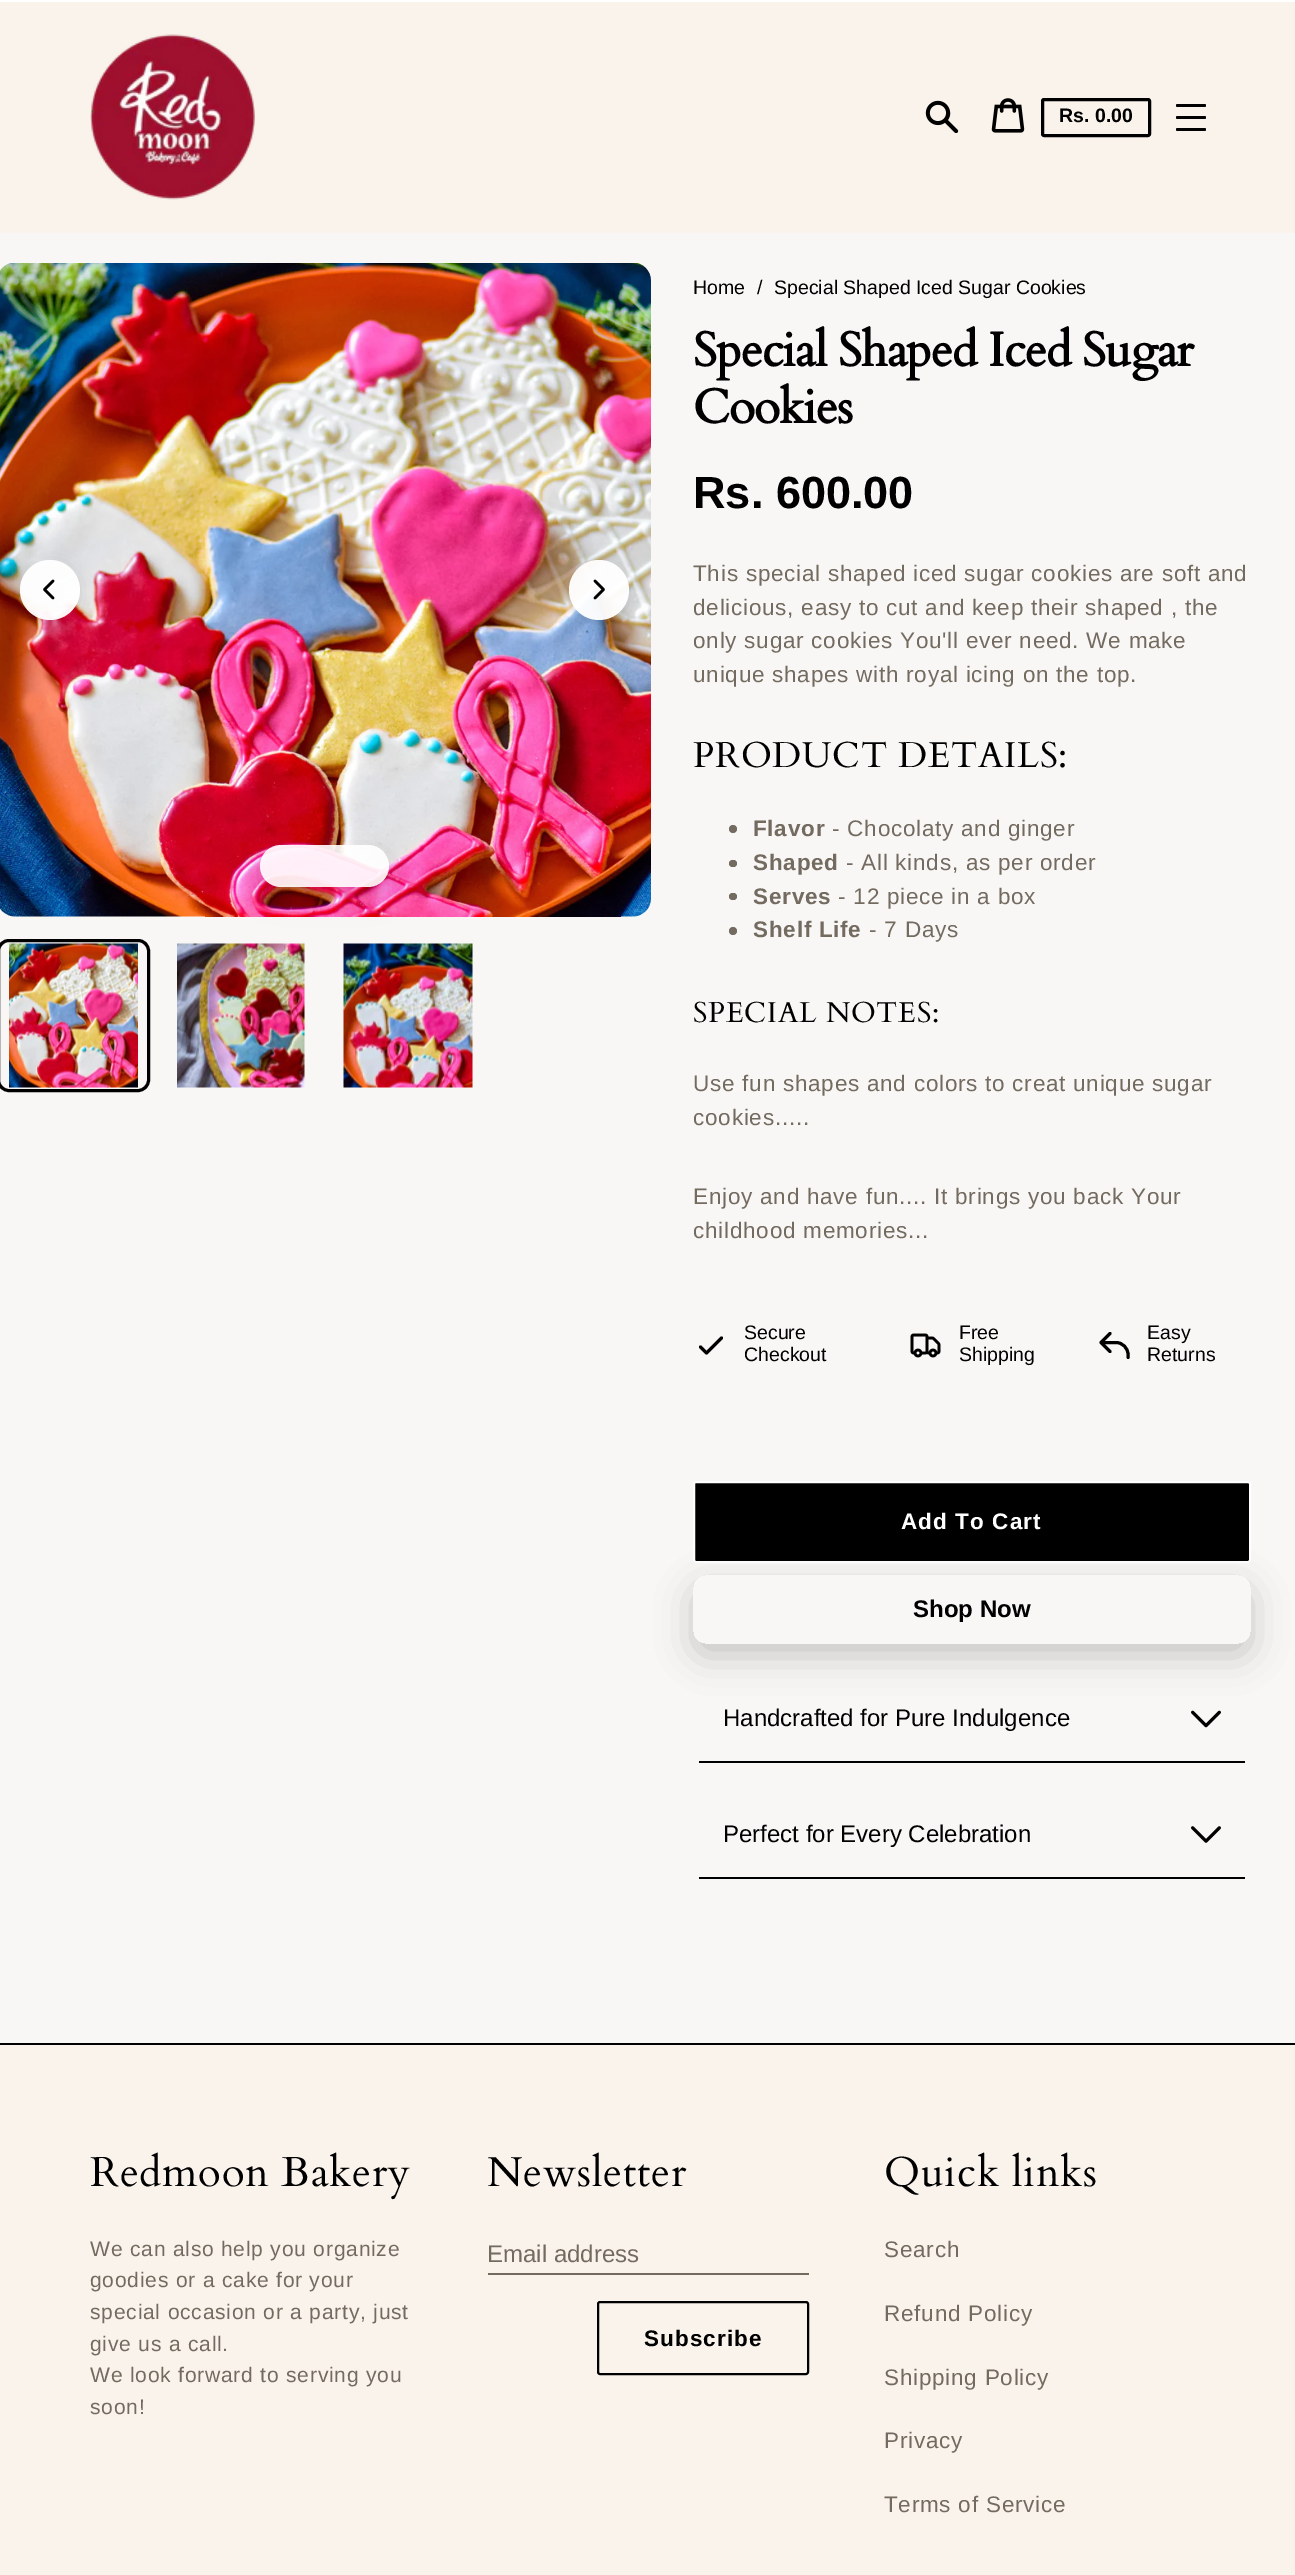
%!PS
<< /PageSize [1295 2575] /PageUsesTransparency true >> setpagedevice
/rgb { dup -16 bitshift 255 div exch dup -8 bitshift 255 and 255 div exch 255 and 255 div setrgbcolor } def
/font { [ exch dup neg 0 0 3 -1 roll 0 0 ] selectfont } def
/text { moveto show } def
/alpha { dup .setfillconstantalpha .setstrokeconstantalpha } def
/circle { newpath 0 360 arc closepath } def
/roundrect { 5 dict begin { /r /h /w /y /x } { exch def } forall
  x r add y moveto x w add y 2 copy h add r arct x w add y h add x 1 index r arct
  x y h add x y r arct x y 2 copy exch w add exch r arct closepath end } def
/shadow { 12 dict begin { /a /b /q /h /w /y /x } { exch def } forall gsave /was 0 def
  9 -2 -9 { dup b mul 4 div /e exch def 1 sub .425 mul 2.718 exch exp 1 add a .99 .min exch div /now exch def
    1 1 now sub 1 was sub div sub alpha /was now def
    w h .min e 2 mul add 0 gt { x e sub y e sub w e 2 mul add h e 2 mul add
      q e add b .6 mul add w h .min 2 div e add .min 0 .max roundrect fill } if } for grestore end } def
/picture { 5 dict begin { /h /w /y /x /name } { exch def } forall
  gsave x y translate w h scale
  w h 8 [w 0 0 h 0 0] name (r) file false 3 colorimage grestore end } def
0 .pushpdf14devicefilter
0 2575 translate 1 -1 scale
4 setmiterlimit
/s1 { /LiberationSans-Bold 19.5 font 16#000000 rgb } def
/s2 { /LiberationSans-Regular 19.5 font 16#000000 rgb } def
/s3 { /LiberationSans-Bold 45 font 16#000000 rgb } def
/s4 { /LiberationSans-Bold 24 font 16#000000 rgb } def
/s5 { /LiberationSans-Regular 24 font 16#000000 rgb } def
/s6 { /LiberationSans-Regular 24 font 16#746B60 rgb } def
16#F9F7F6 rgb
0 0 1295 2575 rectfill
16#FFFFFF rgb
0 0 1295 2 rectfill
16#FAF3EC rgb
0 2 1295 231 rectfill
(pic1.raw) 90 34 165 166 picture
(pic2.raw) 925 100 34 34 picture
(pic3.raw) 991 98 34 35 picture
16#000000 rgb
3 setlinewidth
1042.5 99.5 107 36 1.5 roundrect stroke
s1
(Rs. 0.00) 1059 122 text
1176 116 30 3 1.5 roundrect fill
1176 104 30 3 1.5 roundrect fill
1176 128 30 3 1.5 roundrect fill
(pic4.raw) 0 263 651 654 picture
gsave
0 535 moveto 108 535 lineto 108 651 lineto 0 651 lineto closepath 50 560 moveto 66.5 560 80 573.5 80 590 curveto 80 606.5 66.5 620 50 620 curveto 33.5 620 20 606.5 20 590 curveto 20 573.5 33.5 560 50 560 curveto closepath eoclip newpath
20 563 60 60 30 9 0.1 shadow
grestore
0.95 alpha
16#FFFFFF rgb
50 590 30 circle fill
1 alpha
16#000000 rgb
2.5 setlinewidth
1 setlinecap
1 setlinejoin
53 598 moveto 44.5 589.5 lineto 53 581 lineto stroke
gsave
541 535 moveto 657 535 lineto 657 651 lineto 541 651 lineto closepath 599 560 moveto 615.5 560 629 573.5 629 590 curveto 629 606.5 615.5 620 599 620 curveto 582.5 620 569 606.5 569 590 curveto 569 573.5 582.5 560 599 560 curveto closepath eoclip newpath
569 563 60 60 30 9 0.1 shadow
grestore
0.95 alpha
16#FFFFFF rgb
599 590 30 circle fill
1 alpha
16#000000 rgb
595 581 moveto 603.5 589.5 lineto 595 598 lineto stroke
gsave
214 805 moveto 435 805 lineto 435 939 lineto 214 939 lineto closepath 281 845 moveto 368 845 lineto 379.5 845 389 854.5 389 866 curveto 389 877.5 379.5 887 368 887 curveto 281 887 lineto 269.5 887 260 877.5 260 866 curveto 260 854.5 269.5 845 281 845 curveto closepath eoclip newpath
260 851 129 42 21 15 0.1 shadow
grestore
0.9 alpha
16#FFFFFF rgb
260 845 129 42 21 roundrect fill
1 alpha
16#000000 rgb
3 setlinewidth
0 setlinecap
0 setlinejoin
-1.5 940.5 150 150 10.5 roundrect stroke
(pic5.raw) 9 943 129 145 picture
(pic6.raw) 177 943 128 145 picture
(pic7.raw) 343 943 130 145 picture
s2
(Home) 693 294 text
(/) 757 294 text
(Special Shaped Iced Sugar Cookies) 774 294 text
/Cardo-Bold 48 font
693 366 moveto -0.95 0 (Special Shaped Iced Sugar) ashow
693 423 moveto -0.95 0 (Cookies) ashow
s3
(Rs. 600.00) 693 508 text
/LiberationSans-Regular 22.5 font
16#746B60 rgb
693 581 moveto 0.75 0 (This special shaped iced sugar cookies are soft and) ashow
693 615 moveto 0.75 0 (delicious, easy to cut and keep their shaped , the) ashow
693 648 moveto 0.75 0 (only sugar cookies You'll ever need. We make) ashow
693 682 moveto 0.75 0 (unique shapes with royal icing on the top.) ashow
/Cardo-Regular 35.9 font
16#000000 rgb
693 767 moveto 0.75 0 (PRODUCT DETAILS:) ashow
16#746B60 rgb
733 829 4 circle fill
/LiberationSans-Bold 22.5 font
753 836 moveto 0.75 0 (Flavor) ashow
/LiberationSans-Regular 22.5 font
832 836 moveto 0.75 0 (- Chocolaty and ginger) ashow
729 860 8 7 3.5 roundrect fill
/LiberationSans-Bold 22.5 font
753 870 moveto 0.75 0 (Shaped) ashow
/LiberationSans-Regular 22.5 font
846 870 moveto 0.75 0 (- All kinds, as per order) ashow
729 893 8 7 3.5 roundrect fill
/LiberationSans-Bold 22.5 font
753 904 moveto 0.75 0 (Serves) ashow
/LiberationSans-Regular 22.5 font
838 904 moveto 0.75 0 (- 12 piece in a box) ashow
733 931 4 circle fill
/LiberationSans-Bold 22.5 font
753 937 moveto 0.75 0 (Shelf Life) ashow
/LiberationSans-Regular 22.5 font
869 937 moveto 0.75 0 (- 7 Days) ashow
/Cardo-Regular 28.75 font
16#000000 rgb
693 1022 moveto 0.75 0 (SPECIAL NOTES:) ashow
/LiberationSans-Regular 22.5 font
16#746B60 rgb
693 1091 moveto 0.75 0 (Use fun shapes and colors to creat unique sugar) ashow
693 1125 moveto 0.75 0 (cookies.....) ashow
693 1204 moveto 0.75 0 (Enjoy and have fun.... It brings you back Your) ashow
693 1238 moveto 0.75 0 (childhood memories...) ashow
16#000000 rgb
1 setlinecap
1 setlinejoin
700.5 1347 moveto 706.5 1353 lineto 721.5 1338 lineto stroke
s2
(Secure) 744 1339 text
(Checkout) 744 1361 text
(pic8.raw) 910 1333 31 25 picture
(Free) 959 1339 text
(Shipping) 959 1361 text
1101 1342.5 moveto 1116 1342.5 lineto 1122.5 1342.5 1128 1348 1128 1354.5 curveto 1128 1357.5 lineto 1101 1342.5 moveto 1110 1351.5 lineto 1101 1342.5 moveto 1110 1333.5 lineto stroke
(Easy) 1147 1339 text
(Returns) 1147 1361 text
694 1482 556 80 2 roundrect gsave fill grestore
16#FFFFFF rgb
2 setlinewidth
0 setlinecap
0 setlinejoin
stroke
/LiberationSans-Bold 22.5 font
901 1529 moveto 1.1 0 (Add To Cart) ashow
(pic9.raw) 1191 1710 30 18 picture
gsave
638 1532 moveto 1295 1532 lineto 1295 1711 lineto 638 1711 lineto closepath 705 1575 moveto 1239 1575 lineto 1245.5 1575 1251 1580.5 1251 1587 curveto 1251 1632 lineto 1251 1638.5 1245.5 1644 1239 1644 curveto 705 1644 lineto 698.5 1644 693 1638.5 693 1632 curveto 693 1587 lineto 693 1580.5 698.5 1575 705 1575 curveto closepath eoclip newpath
16#000000 rgb
693 1587 558 69 12 18 0.2 shadow
grestore
s4
(Shop Now) 913 1617 text
699 1761 546 2 rectfill
s5
(Handcrafted for Pure Indulgence) 723 1726 text
699 1877 546 2 rectfill
(Perfect for Every Celebration) 723 1842 text
(pic10.raw) 1191 1826 30 17 picture
16#FAF3EC rgb
0 2045 1295 530 rectfill
16#000000 rgb
0 2043 1295 2 rectfill
/Cardo-Regular 41.75 font
90 2186 moveto 0.75 0 (Redmoon Bakery) ashow
/LiberationSans-Regular 21.1 font
16#746B60 rgb
90 2256 moveto 0.75 0 (We can also help you organize) ashow
90 2287 moveto 0.75 0 (goodies or a cake for your) ashow
90 2319 moveto 0.75 0 (special occasion or a party, just) ashow
90 2351 moveto 0.75 0 (give us a call.) ashow
90 2382 moveto 0.75 0 (We look forward to serving you) ashow
90 2414 moveto 0.75 0 (soon!) ashow
/Cardo-Regular 41.75 font
16#000000 rgb
487 2186 moveto 0.75 0 (Newsletter) ashow
s6
(Email address) 487 2262 text
488 2273 321 2 rectfill
16#000000 rgb
598 2302 210 72 2 roundrect stroke
/LiberationSans-Bold 22.5 font
644 2346 moveto 1.1 0 (Subscribe) ashow
/Cardo-Regular 41.75 font
884 2186 moveto 0.75 0 (Quick links) ashow
/LiberationSans-Regular 22.5 font
16#746B60 rgb
884 2257 moveto 0.75 0 (Search) ashow
884 2321 moveto 0.75 0 (Refund Policy) ashow
884 2385 moveto 0.75 0 (Shipping Policy) ashow
884 2448 moveto 0.75 0 (Privacy) ashow
884 2512 moveto 0.75 0 (Terms of Service) ashow
.poppdf14devicefilter showpage
